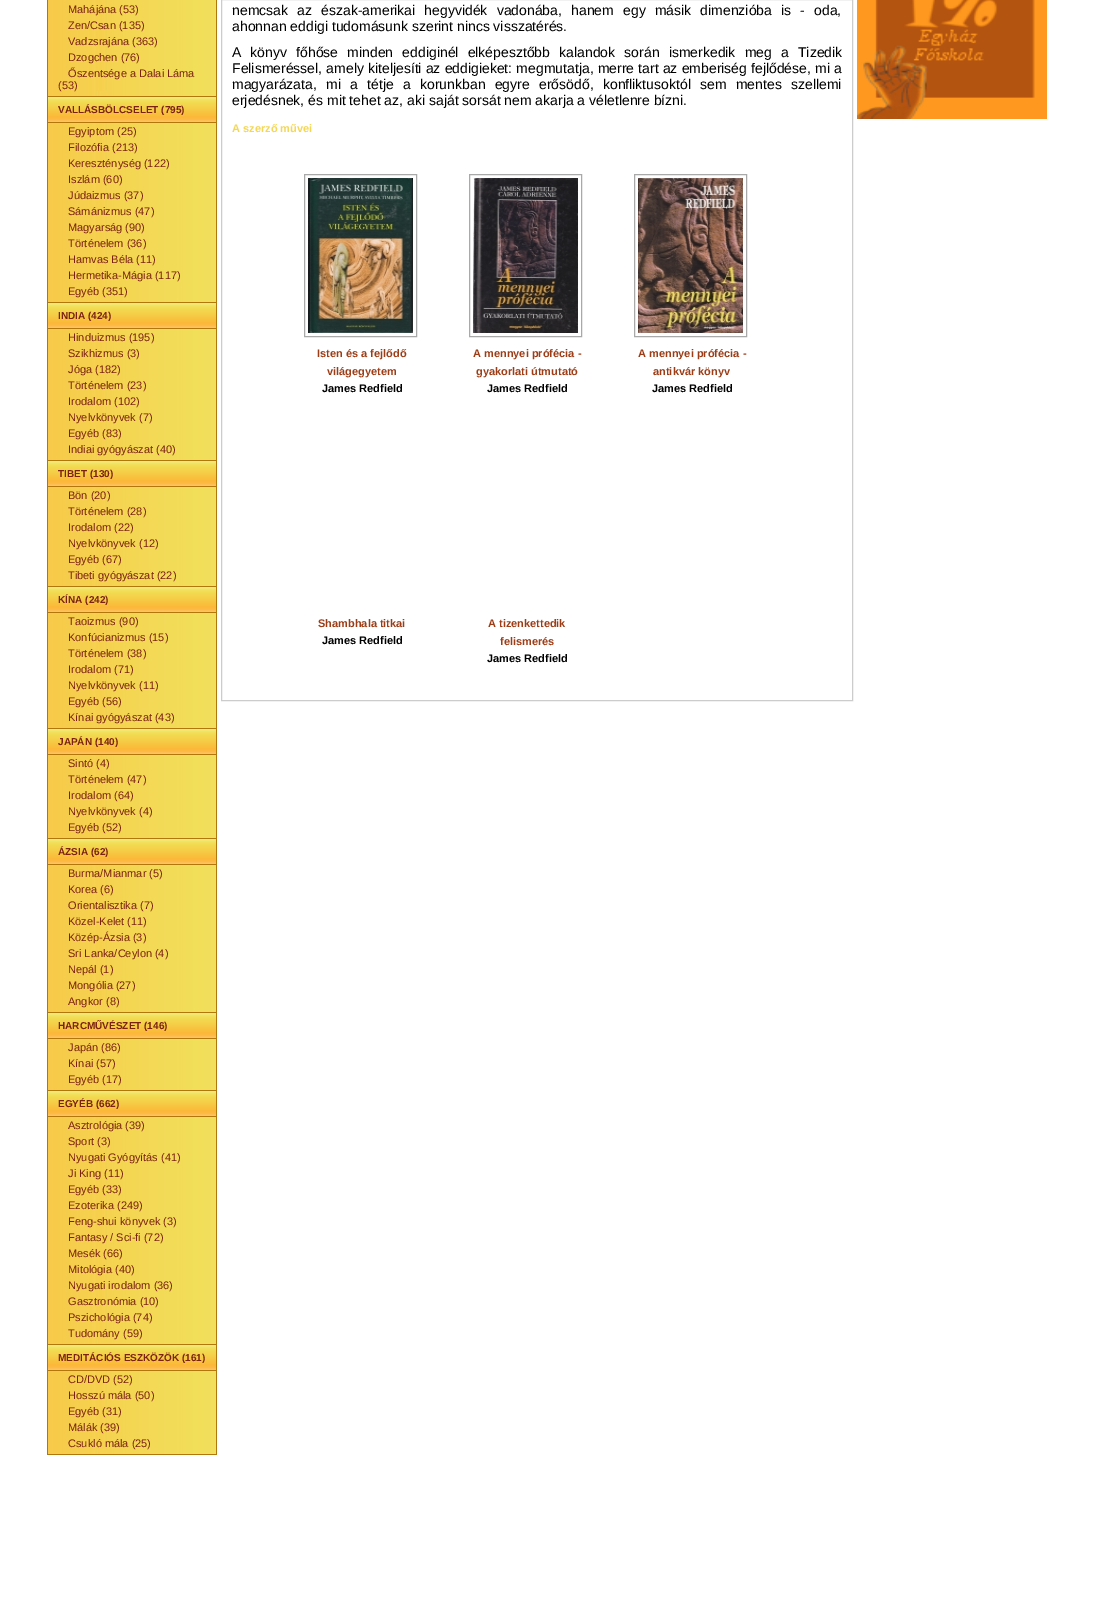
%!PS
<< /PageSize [1094 1598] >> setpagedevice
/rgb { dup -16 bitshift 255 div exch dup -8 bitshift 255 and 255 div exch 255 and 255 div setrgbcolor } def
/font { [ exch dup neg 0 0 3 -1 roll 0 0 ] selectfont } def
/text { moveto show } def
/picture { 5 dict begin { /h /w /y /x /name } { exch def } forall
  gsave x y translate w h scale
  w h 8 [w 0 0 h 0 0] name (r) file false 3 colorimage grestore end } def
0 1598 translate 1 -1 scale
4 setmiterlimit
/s1 { /LiberationSans-Regular 11 font 16#7B2212 rgb } def
/s2 { /LiberationSans-Bold 10 font 16#7B2212 rgb } def
/s3 { /LiberationSans-Regular 14 font 16#000000 rgb } def
/s4 { /LiberationSans-Bold 11 font 16#F4D755 rgb } def
/s5 { /LiberationSans-Bold 11 font 16#9D3D17 rgb } def
/s6 { /LiberationSans-Bold 11 font 16#000000 rgb } def
16#FFFFFF rgb
0 0 1094 1598 rectfill
(pic1.raw) 48 0 168 1454 picture
16#B1770B rgb
216 0 1 1455 rectfill
47 1454 170 1 rectfill
47 0 1 1455 rectfill
(pic2.raw) 96 0 11 91 picture
s1
(Mahájána \(53\)) 68 13 text
(Zen/Csan \(135\)) 68 29 text
(Vadzsrajána \(363\)) 68 45 text
(Dzogchen \(76\)) 68 61 text
(Őszentsége a Dalai Láma) 68 77 text
(\(53\)) 58 89 text
(pic3.raw) 48 96 168 27 picture
s2
(VALLÁSBÖLCSELET \(795\)) 58 113 text
(pic4.raw) 96 123 11 174 picture
s1
(Egyiptom \(25\)) 68 135 text
(Filozófia \(213\)) 68 151 text
(Kereszténység \(122\)) 68 167 text
(Iszlám \(60\)) 68 183 text
(Júdaizmus \(37\)) 68 199 text
(Sámánizmus \(47\)) 68 215 text
(Magyarság \(90\)) 68 231 text
(Történelem \(36\)) 68 247 text
(Hamvas Béla \(11\)) 68 263 text
(Hermetika-Mágia \(117\)) 68 279 text
(Egyéb \(351\)) 68 295 text
(pic3.raw) 48 302 168 27 picture
s2
(INDIA \(424\)) 58 319 text
(pic5.raw) 96 329 11 126 picture
s1
(Hinduizmus \(195\)) 68 341 text
(Szikhizmus \(3\)) 68 357 text
(Jóga \(182\)) 68 373 text
(Történelem \(23\)) 68 389 text
(Irodalom \(102\)) 68 405 text
(Nyelvkönyvek \(7\)) 68 421 text
(Egyéb \(83\)) 68 437 text
(Indiai gyógyászat \(40\)) 68 453 text
(pic3.raw) 48 460 168 27 picture
s2
(TIBET \(130\)) 58 477 text
(pic6.raw) 96 487 11 94 picture
s1
(Bön \(20\)) 68 499 text
(Történelem \(28\)) 68 515 text
(Irodalom \(22\)) 68 531 text
(Nyelvkönyvek \(12\)) 68 547 text
(Egyéb \(67\)) 68 563 text
(Tibeti gyógyászat \(22\)) 68 579 text
(pic3.raw) 48 586 168 27 picture
s2
(KÍNA \(242\)) 58 603 text
(pic7.raw) 96 613 11 110 picture
s1
(Taoizmus \(90\)) 68 625 text
(Konfúcianizmus \(15\)) 68 641 text
(Történelem \(38\)) 68 657 text
(Irodalom \(71\)) 68 673 text
(Nyelvkönyvek \(11\)) 68 689 text
(Egyéb \(56\)) 68 705 text
(Kínai gyógyászat \(43\)) 68 721 text
(pic3.raw) 48 728 168 27 picture
s2
(JAPÁN \(140\)) 58 745 text
(pic8.raw) 96 755 11 78 picture
s1
(Sintó \(4\)) 68 767 text
(Történelem \(47\)) 68 783 text
(Irodalom \(64\)) 68 799 text
(Nyelvkönyvek \(4\)) 68 815 text
(Egyéb \(52\)) 68 831 text
(pic3.raw) 48 838 168 27 picture
s2
(ÁZSIA \(62\)) 58 855 text
(pic9.raw) 96 865 11 142 picture
s1
(Burma/Mianmar \(5\)) 68 877 text
(Korea \(6\)) 68 893 text
(Orientalisztika \(7\)) 68 909 text
(Közel-Kelet \(11\)) 68 925 text
(Közép-Ázsia \(3\)) 68 941 text
(Sri Lanka/Ceylon \(4\)) 68 957 text
(Nepál \(1\)) 68 973 text
(Mongólia \(27\)) 68 989 text
(Angkor \(8\)) 68 1005 text
(pic3.raw) 48 1012 168 27 picture
s2
(HARCMŰVÉSZET \(146\)) 58 1029 text
(pic10.raw) 96 1039 11 46 picture
s1
(Japán \(86\)) 68 1051 text
(Kínai \(57\)) 68 1067 text
(Egyéb \(17\)) 68 1083 text
(pic3.raw) 48 1090 168 27 picture
s2
(EGYÉB \(662\)) 58 1107 text
(pic11.raw) 96 1117 11 222 picture
s1
(Asztrológia \(39\)) 68 1129 text
(Sport \(3\)) 68 1145 text
(Nyugati Gyógyítás \(41\)) 68 1161 text
(Ji King \(11\)) 68 1177 text
(Egyéb \(33\)) 68 1193 text
(Ezoterika \(249\)) 68 1209 text
(Feng-shui könyvek \(3\)) 68 1225 text
(Fantasy / Sci-fi \(72\)) 68 1241 text
(Mesék \(66\)) 68 1257 text
(Mitológia \(40\)) 68 1273 text
(Nyugati irodalom \(36\)) 68 1289 text
(Gasztronómia \(10\)) 68 1305 text
(Pszichológia \(74\)) 68 1321 text
(Tudomány \(59\)) 68 1337 text
(pic3.raw) 48 1344 168 27 picture
s2
(MEDITÁCIÓS ESZKÖZÖK \(161\)) 58 1361 text
(pic8.raw) 96 1371 11 78 picture
s1
(CD/DVD \(52\)) 68 1383 text
(Hosszú mála \(50\)) 68 1399 text
(Egyéb \(31\)) 68 1415 text
(Málák \(39\)) 68 1431 text
(Csukló mála \(25\)) 68 1447 text
16#CCCCCC rgb
221.5 -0.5 631 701 rectstroke
/LiberationSans-Regular 14 font
16#000000 rgb
232 15 moveto 5.25 0 32 (nemcsak az észak-amerikai hegyvidék vadonába, hanem egy másik dimenzióba is - oda,) widthshow
(ahonnan eddigi tudomásunk szerint nincs visszatérés.) 232 31 text
232 57 moveto 5.25 0 32 (A könyv főhőse minden eddiginél elképesztőbb kalandok során ismerkedik meg a Tizedik) widthshow
232 73 moveto 0.25 0 32 (Felismeréssel, amely kiteljesíti az eddigieket: megmutatja, merre tart az emberiség fejlődése, mi a) widthshow
232 89 moveto 5.4 0 32 (magyarázata, mi a tétje a korunkban egyre erősödő, konfliktusoktól sem mentes szellemi) widthshow
(erjedésnek, és mit tehet az, aki saját sorsát nem akarja a véletlenre bízni.) 232 105 text
s4
(A szerző művei) 232 132 text
16#A9A9A9 rgb
304.5 174.5 112 162 rectstroke
(pic12.raw) 308 178 105 155 picture
s5
(Isten és a fejlődő) 317 357 text
(világegyetem) 327 375 text
s6
(James Redfield) 322 392 text
16#A9A9A9 rgb
469.5 174.5 112 162 rectstroke
(pic13.raw) 473 178 105 155 picture
s5
(A mennyei prófécia -) 473 357 text
(gyakorlati útmutató) 476 375 text
s6
(James Redfield) 487 392 text
16#A9A9A9 rgb
634.5 174.5 112 162 rectstroke
(pic14.raw) 638 178 105 155 picture
s5
(A mennyei prófécia -) 638 357 text
(antikvár könyv) 653 375 text
s6
(James Redfield) 652 392 text
s5
(Shambhala titkai) 318 627 text
s6
(James Redfield) 322 644 text
s5
(A tizenkettedik) 488 627 text
(felismerés) 500 645 text
s6
(James Redfield) 487 662 text
(pic15.raw) 857 0 190 119 picture
showpage
